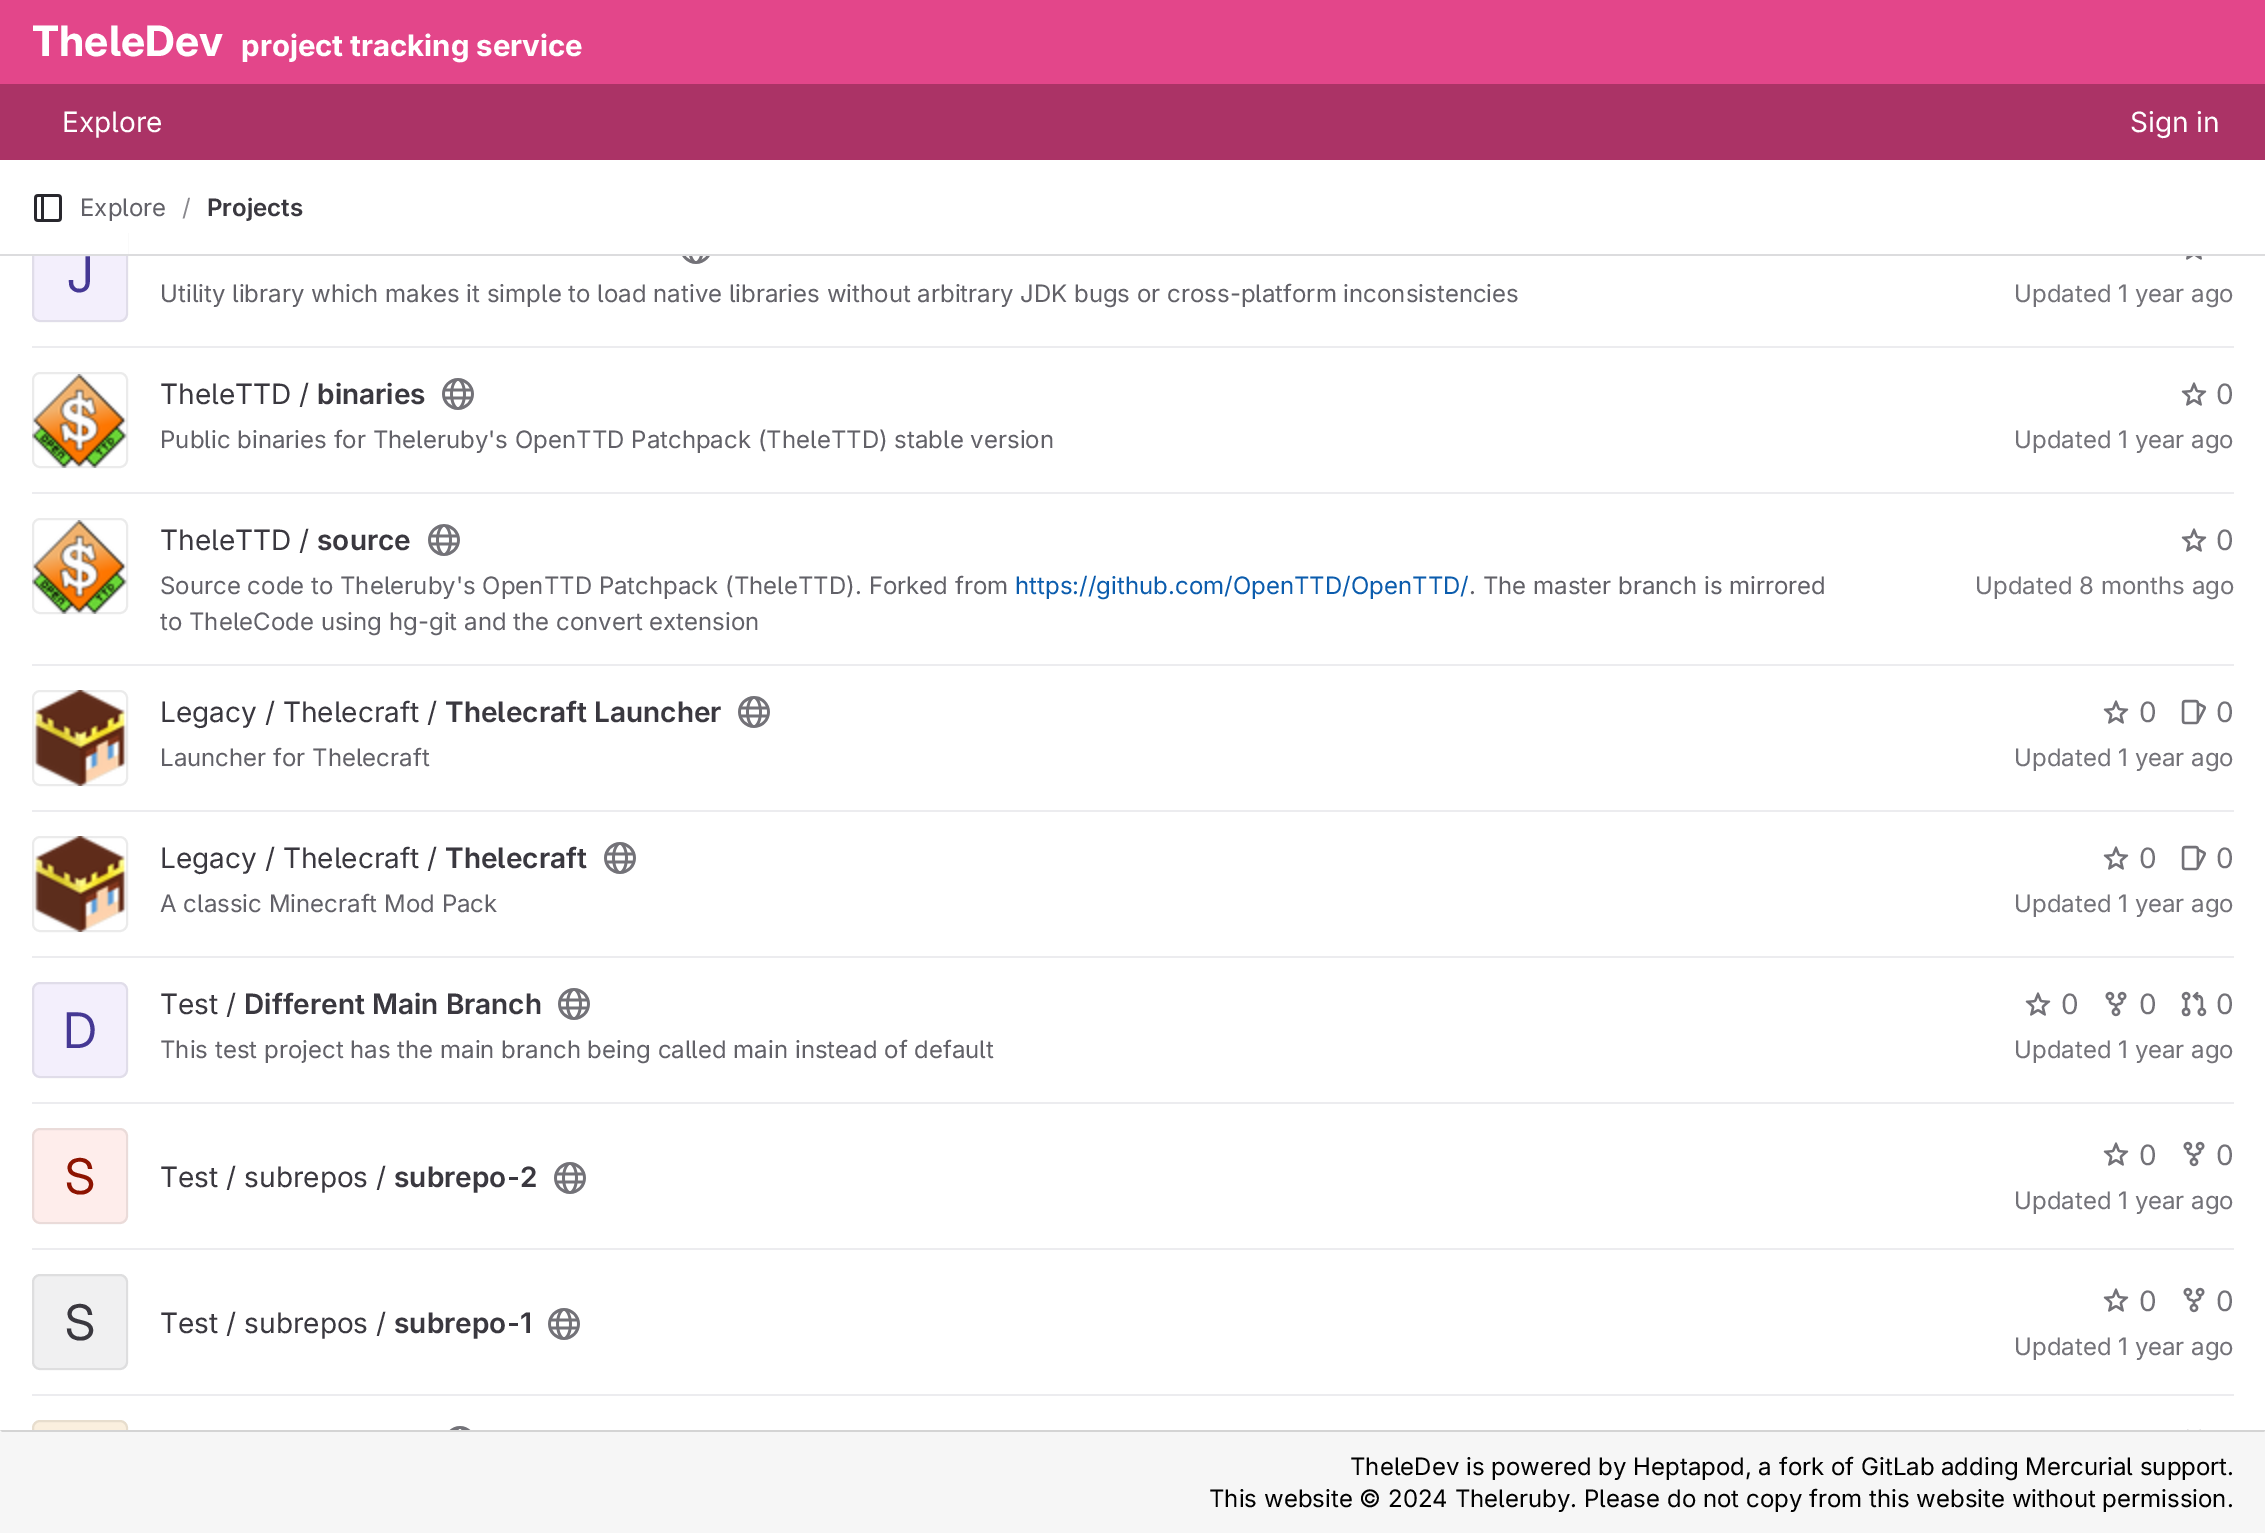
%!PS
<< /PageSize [2265 1533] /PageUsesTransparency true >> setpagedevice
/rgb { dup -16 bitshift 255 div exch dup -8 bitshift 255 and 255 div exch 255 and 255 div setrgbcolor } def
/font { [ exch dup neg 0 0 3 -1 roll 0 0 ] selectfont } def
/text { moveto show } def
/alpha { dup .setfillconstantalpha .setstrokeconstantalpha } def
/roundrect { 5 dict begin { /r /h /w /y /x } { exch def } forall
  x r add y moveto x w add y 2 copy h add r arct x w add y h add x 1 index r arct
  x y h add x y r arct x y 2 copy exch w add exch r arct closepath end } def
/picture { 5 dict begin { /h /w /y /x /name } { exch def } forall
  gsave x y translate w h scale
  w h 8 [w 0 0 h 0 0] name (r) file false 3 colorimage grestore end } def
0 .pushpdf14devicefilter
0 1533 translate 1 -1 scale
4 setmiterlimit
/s1 { /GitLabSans-Bold 42 font 16#FFFFFF rgb } def
/s2 { /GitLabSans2-Bold 29.4 font 16#FFFFFF rgb } def
/s3 { /GitLabSans-Regular 28 font 16#FFFFFF rgb } def
/s4 { /GitLabSans-Regular 24 font 16#626168 rgb } def
/s5 { /GitLabSans-Regular 24 font 16#89888D rgb } def
/s6 { /GitLabSans-SemiBold 24 font 16#3A383F rgb } def
/s7 { /GitLabSans2-Regular 49 font 16#453894 rgb } def
/s8 { /GitLabSans-Regular 24 font 16#737278 rgb } def
/s9 { /GitLabSans-Regular 28 font 16#3A383F rgb } def
/s10 { /GitLabSans-SemiBold 28 font 16#3A383F rgb } def
/s11 { /GitLabSans-Regular 28 font 16#737278 rgb } def
/s12 { /GitLabSans-Regular 24 font 16#0B5CAD rgb } def
/s13 { /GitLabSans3-Regular 49 font 16#8D1300 rgb } def
/s14 { /GitLabSans3-Regular 49 font 16#3A383F rgb } def
/s15 { /GitLabSans-Regular 24 font 16#000000 rgb } def
16#FFFFFF rgb
0 0 2265 1533 rectfill
16#E3468A rgb
0 0 2265 84 rectfill
s1
(TheleDev) 32 56 text
s2
(project tracking service) 241 56 text
16#AB3366 rgb
0 84 2265 76 rectfill
s3
(Explore) 62 132 text
(Sign in) 2130 132 text
16#F3EFFC rgb
32 226 96 96 8 roundrect fill
0.08 alpha
16#050506 rgb
2 setlinewidth
33 227 94 94 7 roundrect stroke
1 alpha
16#FFFFFF rgb
32 226 96 28 rectfill
16#DCDCDE rgb
0 254 2265 2 rectfill
(pic1.raw) 34 194 28 28 picture
s4
(Explore) 80 216 text
s5
(/) 182 216 text
s6
(Projects) 207 216 text
16#ECECEF rgb
32 346 2202 2 rectfill
s7
(J) 67 292 text
(pic2.raw) 682 256 28 8 picture
s4
(Utility library which makes it simple to load native libraries without arbitrary JDK bugs or cross-platform inconsistencies) 160 302 text
(pic3.raw) 2186 256 16 4 picture
s8
(Updated 1 year ago) 2014 302 text
16#ECECEF rgb
32 492 2202 2 rectfill
(pic4.raw) 32 374 95 94 picture
0.08 alpha
16#050506 rgb
33 373 94 94 7 roundrect stroke
1 alpha
s9
(TheleTTD /) 160 404 text
s10
(binaries) 317 404 text
(pic5.raw) 442 378 32 32 picture
s4
(Public binaries for Theleruby's OpenTTD Patchpack \(TheleTTD\) stable version) 160 448 text
(pic6.raw) 2181 382 26 24 picture
s11
(0) 2216 404 text
s8
(Updated 1 year ago) 2014 448 text
16#ECECEF rgb
32 664 2202 2 rectfill
(pic4.raw) 32 520 95 94 picture
0.08 alpha
16#050506 rgb
33 519 94 94 7 roundrect stroke
1 alpha
s9
(TheleTTD /) 160 550 text
s10
(source) 317 550 text
(pic7.raw) 428 524 32 32 picture
s4
(Source code to Theleruby's OpenTTD Patchpack \(TheleTTD\). Forked from) 160 594 text
s12
(https://github.com/OpenTTD/OpenTTD/) 1015 594 text
s4
(. The master branch is mirrored) 1469 594 text
(to TheleCode using hg-git and the convert extension) 160 630 text
(pic6.raw) 2181 528 26 24 picture
s11
(0) 2216 550 text
s8
(Updated 8 months ago) 1975 594 text
16#ECECEF rgb
32 810 2202 2 rectfill
(pic8.raw) 34 690 93 96 picture
0.08 alpha
16#050506 rgb
33 691 94 94 7 roundrect stroke
1 alpha
s9
(Legacy / Thelecraft /) 160 722 text
s10
(Thelecraft Launcher) 445 722 text
(pic9.raw) 738 696 32 32 picture
s4
(Launcher for Thelecraft) 160 766 text
(pic6.raw) 2103 700 26 24 picture
s11
(0) 2139 722 text
(pic10.raw) 2181 699 25 26 picture
(0) 2216 722 text
s8
(Updated 1 year ago) 2014 766 text
16#ECECEF rgb
32 956 2202 2 rectfill
(pic8.raw) 34 836 93 96 picture
0.08 alpha
16#050506 rgb
33 837 94 94 7 roundrect stroke
1 alpha
s9
(Legacy / Thelecraft /) 160 868 text
s10
(Thelecraft) 445 868 text
(pic5.raw) 604 842 32 32 picture
s4
(A classic Minecraft Mod Pack) 160 912 text
(pic6.raw) 2103 846 26 24 picture
s11
(0) 2139 868 text
(pic10.raw) 2181 845 25 26 picture
(0) 2216 868 text
s8
(Updated 1 year ago) 2014 912 text
16#ECECEF rgb
32 1102 2202 2 rectfill
16#F3EFFC rgb
32 982 96 96 8 roundrect fill
0.08 alpha
16#050506 rgb
33 983 94 94 7 roundrect stroke
1 alpha
s7
(D) 63 1048 text
s9
(Test /) 160 1014 text
s10
(Different Main Branch) 244 1014 text
(pic5.raw) 558 988 32 32 picture
s4
(This test project has the main branch being called main instead of default) 160 1058 text
(pic11.raw) 2025 992 26 24 picture
s11
(0) 2061 1014 text
(pic12.raw) 2105 991 22 26 picture
(0) 2139 1014 text
(pic13.raw) 2181 991 26 26 picture
(0) 2216 1014 text
s8
(Updated 1 year ago) 2014 1058 text
16#ECECEF rgb
32 1248 2202 2 rectfill
16#FEEDEB rgb
32 1128 96 96 8 roundrect fill
0.08 alpha
16#050506 rgb
33 1129 94 94 7 roundrect stroke
1 alpha
s13
(S) 65 1194 text
s9
(Test / subrepos /) 160 1187 text
s10
(subrepo-2) 394 1187 text
(pic5.raw) 554 1162 32 32 picture
(pic6.raw) 2103 1142 26 24 picture
s11
(0) 2139 1165 text
(pic14.raw) 2183 1141 22 26 picture
(0) 2216 1165 text
s8
(Updated 1 year ago) 2014 1209 text
16#ECECEF rgb
32 1394 2202 2 rectfill
16#F0F0F1 rgb
32 1274 96 96 8 roundrect fill
0.08 alpha
16#050506 rgb
33 1275 94 94 7 roundrect stroke
1 alpha
s14
(S) 65 1340 text
s9
(Test / subrepos /) 160 1333 text
s10
(subrepo-1) 394 1333 text
(pic5.raw) 548 1308 32 32 picture
(pic6.raw) 2103 1288 26 24 picture
s11
(0) 2139 1311 text
(pic14.raw) 2183 1287 22 26 picture
(0) 2216 1311 text
s8
(Updated 1 year ago) 2014 1355 text
16#FAEFDE rgb
32 1420 96 96 8 roundrect fill
0.08 alpha
16#050506 rgb
33 1421 94 94 7 roundrect stroke
1 alpha
(pic15.raw) 449 1426 22 4 picture
(pic16.raw) 2187 1429 14 1 picture
16#F6F6F6 rgb
0 1430 2265 103 rectfill
16#D4D4D4 rgb
0 1430 moveto 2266 1430 lineto 2264 1432 lineto 2 1432 lineto closepath fill
s15
(TheleDev is powered by Heptapod, a fork of GitLab adding Mercurial support.) 1350 1475 text
(This website © 2024 Theleruby. Please do not copy from this website without permission.) 1209 1507 text
.poppdf14devicefilter showpage
